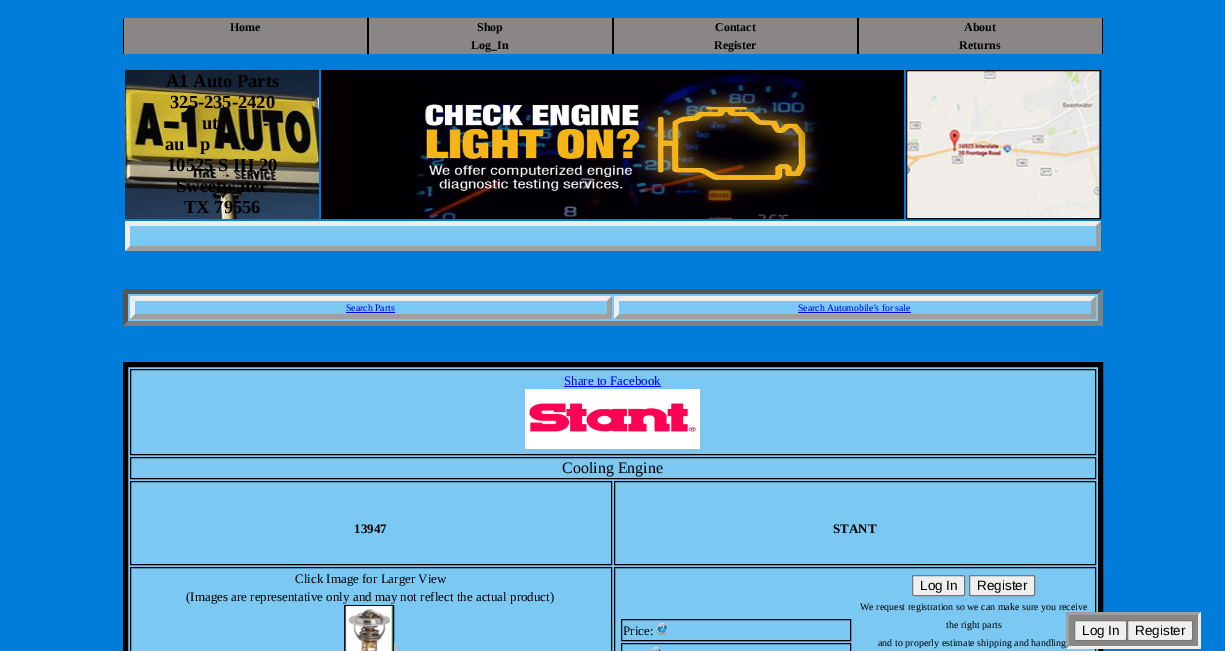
%!PS
<< /PageSize [1225 651] >> setpagedevice
/rgb { dup -16 bitshift 255 div exch dup -8 bitshift 255 and 255 div exch 255 and 255 div setrgbcolor } def
/font { [ exch dup neg 0 0 3 -1 roll 0 0 ] selectfont } def
/text { moveto show } def
/roundrect { 5 dict begin { /r /h /w /y /x } { exch def } forall
  x r add y moveto x w add y 2 copy h add r arct x w add y h add x 1 index r arct
  x y h add x y r arct x y 2 copy exch w add exch r arct closepath end } def
/picture { 5 dict begin { /h /w /y /x /name } { exch def } forall
  gsave x y translate w h scale
  w h 8 [w 0 0 h 0 0] name (r) file false 3 colorimage grestore end } def
0 651 translate 1 -1 scale
4 setmiterlimit
/s1 { /LiberationSerif-Bold 12 font 16#000000 rgb } def
/s2 { /LiberationSerif-Bold 18.5 font 16#000000 rgb } def
/s3 { /LiberationSerif-Regular 9.75 font 16#0000EE rgb } def
/s4 { /LiberationSerif-Regular 13 font 16#0000EE rgb } def
/s5 { /LiberationSerif-Regular 16 font 16#000000 rgb } def
/s6 { /LiberationSerif-Bold 13 font 16#000000 rgb } def
/s7 { /LiberationSerif-Regular 13 font 16#000000 rgb } def
/s8 { /LiberationSans-Regular 13.5 font 16#000000 rgb } def
/s9 { /LiberationSerif-Regular 10 font 16#000000 rgb } def
16#007CDB rgb
0 0 1225 651 rectfill
16#8A8686 rgb
124 18 243 36 rectfill
16#000000 rgb
367 18 2 18 rectfill
123 18 1 36 rectfill
s1
(Home) 230 31 text
16#8A8686 rgb
369 18 243 36 rectfill
16#000000 rgb
612 18 2 18 rectfill
(Shop) 477 31 text
16#8A8686 rgb
614 18 243 36 rectfill
16#000000 rgb
857 18 2 18 rectfill
(Contact) 715 31 text
16#8A8686 rgb
859 18 243 36 rectfill
16#000000 rgb
1102 18 1 36 rectfill
(About) 964 31 text
367 36 2 18 rectfill
612 36 2 18 rectfill
(Log_In) 471 49 text
857 36 2 18 rectfill
(Register) 714 49 text
(Returns) 959 49 text
(pic1.raw) 125 70 194 149 picture
s2
(A1 Auto Parts) 166 87 text
(325-235-2420) 170 108 text
(ut) 202 129 text
(-) 263 129 text
(au) 165 150 text
(p) 200 150 text
(.) 241 150 text
(10525 S IH 20) 167 171 text
(Sweetwater) 176 192 text
(TX 79556) 184 213 text
(pic2.raw) 321 70 583 149 picture
(pic3.raw) 907 71 192 147 picture
906.5 70.5 194 148 rectstroke
16#7BC8F3 rgb
125 221 976 30 rectfill
16#EEEEEE rgb
125 221 moveto 1101 221 lineto 1096 226 lineto 130 226 lineto closepath fill
16#9F9F9F rgb
1101 221 moveto 1101 251 lineto 1096 246 lineto 1096 226 lineto closepath fill
1101 251 moveto 125 251 lineto 130 246 lineto 1096 246 lineto closepath fill
16#EEEEEE rgb
125 251 moveto 125 221 lineto 130 226 lineto 130 246 lineto closepath fill
16#7BC8F3 rgb
123 289 980 37 rectfill
16#555555 rgb
123 289 moveto 1103 289 lineto 1098 294 lineto 128 294 lineto closepath fill
16#808080 rgb
1103 289 moveto 1103 326 lineto 1098 321 lineto 1098 294 lineto closepath fill
1103 326 moveto 123 326 lineto 128 321 lineto 1098 321 lineto closepath fill
16#555555 rgb
123 326 moveto 123 289 lineto 128 294 lineto 128 321 lineto closepath fill
16#EEEEEE rgb
130 296 moveto 612 296 lineto 607 301 lineto 135 301 lineto closepath fill
16#9F9F9F rgb
612 296 moveto 612 319 lineto 607 314 lineto 607 301 lineto closepath fill
612 319 moveto 130 319 lineto 135 314 lineto 607 314 lineto closepath fill
16#EEEEEE rgb
130 319 moveto 130 296 lineto 135 301 lineto 135 314 lineto closepath fill
s3
(Search Parts) 346 311 text
346 312 49 1 rectfill
16#EEEEEE rgb
614 296 moveto 1096 296 lineto 1091 301 lineto 619 301 lineto closepath fill
16#9F9F9F rgb
1096 296 moveto 1096 319 lineto 1091 314 lineto 1091 301 lineto closepath fill
1096 319 moveto 614 319 lineto 619 314 lineto 1091 314 lineto closepath fill
16#EEEEEE rgb
614 319 moveto 614 296 lineto 619 301 lineto 619 314 lineto closepath fill
s3
(Search Automobile's for sale) 798 311 text
798 312 113 1 rectfill
16#7BC8F3 rgb
125.5 364.5 moveto 1100.5 364.5 lineto 1100.5 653.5 lineto 125.5 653.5 lineto closepath gsave fill grestore
16#000000 rgb
5 setlinewidth
stroke
1 setlinewidth
130.5 369.5 965 85 rectstroke
s4
(Share to Facebook) 564 385 text
564 386 97 1 rectfill
(pic4.raw) 525 389 175 60 picture
16#000000 rgb
130.5 457.5 965 21 rectstroke
s5
(Cooling Engine) 562 473 text
130.5 481.5 481 83 rectstroke
s6
(13947) 354 533 text
614.5 481.5 481 83 rectstroke
(STANT) 833 533 text
130.5 567.5 481 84 rectstroke
s7
(Click Image for Larger View) 295 583 text
(\(Images are representative only and may not reflect the actual product\)) 186 601 text
344.5 605.5 49 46 rectstroke
(pic5.raw) 345 606 48 45 picture
16#BBBBBB rgb
394 643 moveto 396 643 lineto 397.5 645 397.5 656 396 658 curveto 394 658 lineto closepath fill
16#000000 rgb
614.5 567.5 481 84 rectstroke
621.5 619.5 229 21 rectstroke
(Price:) 623 635 text
(pic6.raw) 656 623 12 12 picture
621.5 643.5 229 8 rectstroke
(pic7.raw) 650 647 12 4 picture
16#EFEFEF rgb
912.5 575.5 52 20 1.5 roundrect gsave fill grestore
16#767676 rgb
stroke
s8
(Log In) 920 590 text
16#EFEFEF rgb
969.5 575.5 65 20 1.5 roundrect gsave fill grestore
16#767676 rgb
stroke
s8
(Register) 977 590 text
s9
(We request registration so we can make sure you receive) 860 610 text
(the right parts) 946 628 text
(and to properly estimate shipping and handling) 878 646 text
16#8A8686 rgb
1066 612 135 37 rectfill
16#9F9F9F rgb
1066 612 moveto 1201 612 lineto 1198 615 lineto 1069 615 lineto closepath fill
16#EEEEEE rgb
1201 612 moveto 1201 649 lineto 1198 646 lineto 1198 615 lineto closepath fill
1201 649 moveto 1066 649 lineto 1069 646 lineto 1198 646 lineto closepath fill
16#9F9F9F rgb
1066 649 moveto 1066 612 lineto 1069 615 lineto 1069 646 lineto closepath fill
16#EFEFEF rgb
1074.5 620.5 52 20 1.5 roundrect gsave fill grestore
16#767676 rgb
stroke
s8
(Log In) 1082 635 text
16#EFEFEF rgb
1127.5 620.5 65 20 1.5 roundrect gsave fill grestore
16#767676 rgb
stroke
s8
(Register) 1135 635 text
showpage
